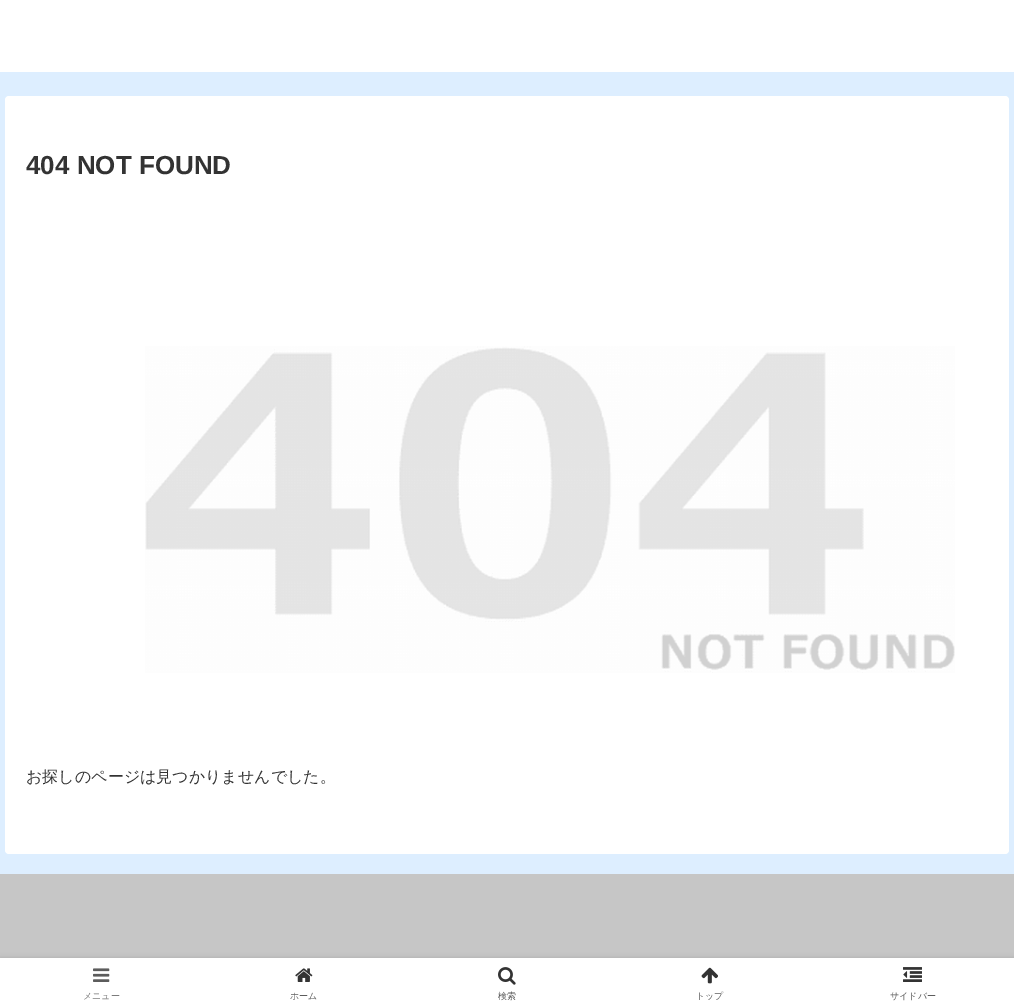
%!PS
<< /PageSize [1014 1008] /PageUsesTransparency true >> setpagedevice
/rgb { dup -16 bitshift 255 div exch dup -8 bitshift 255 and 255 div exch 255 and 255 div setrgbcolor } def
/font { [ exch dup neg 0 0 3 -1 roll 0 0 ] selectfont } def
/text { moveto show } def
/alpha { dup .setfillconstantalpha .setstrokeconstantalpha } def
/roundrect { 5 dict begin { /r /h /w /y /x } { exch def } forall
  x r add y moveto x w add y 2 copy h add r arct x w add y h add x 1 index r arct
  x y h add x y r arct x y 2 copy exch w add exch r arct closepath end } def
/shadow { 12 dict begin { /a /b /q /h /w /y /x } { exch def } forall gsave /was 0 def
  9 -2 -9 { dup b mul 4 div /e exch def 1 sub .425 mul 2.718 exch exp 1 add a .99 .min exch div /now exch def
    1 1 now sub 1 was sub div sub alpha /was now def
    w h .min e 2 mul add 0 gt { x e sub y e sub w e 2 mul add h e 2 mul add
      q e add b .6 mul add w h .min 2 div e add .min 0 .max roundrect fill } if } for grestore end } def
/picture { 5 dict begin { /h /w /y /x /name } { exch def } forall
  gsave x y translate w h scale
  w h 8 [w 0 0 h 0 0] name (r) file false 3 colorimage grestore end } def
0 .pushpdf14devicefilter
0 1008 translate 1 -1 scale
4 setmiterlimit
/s1 { /LiberationSans-Bold 26 font 16#333333 rgb } def
/s2 { /WenQuanYiZenHei-Medium 16 font 16#333333 rgb } def
/s3 { /WenQuanYiZenHei-Medium 9 font 16#7C7C7C rgb } def
/s4 { /WenQuanYiZenHei-Medium 9 font 16#5C5C5C rgb } def
16#DDEEFF rgb
0 0 1014 1008 rectfill
16#FFFFFF rgb
0 0 1014 72 rectfill
5 96 1004 758 4 roundrect fill
s1
(404 NOT FOUND) 26 174 text
(pic1.raw) 145 346 810 327 picture
s2
(お探しのページは見つかりませんでした。) 26 782 text
16#C6C6C6 rgb
0 874 1014 84 rectfill
16#A9A9A9 rgb
0 958 1014 50 0 2.5 1 shadow
16#FFFFFF rgb
0 958 1014 50 rectfill
(pic2.raw) 93 968 17 14 picture
s3
(メニュー) 83 999 text
(pic3.raw) 295 968 18 14 picture
s4
(ホーム) 290 999 text
(pic4.raw) 498 967 18 18 picture
(検索) 498 999 text
(pic5.raw) 701 967 17 17 picture
(トップ) 696 999 text
(pic6.raw) 903 967 19 15 picture
(サイドバー) 890 999 text
.poppdf14devicefilter showpage
